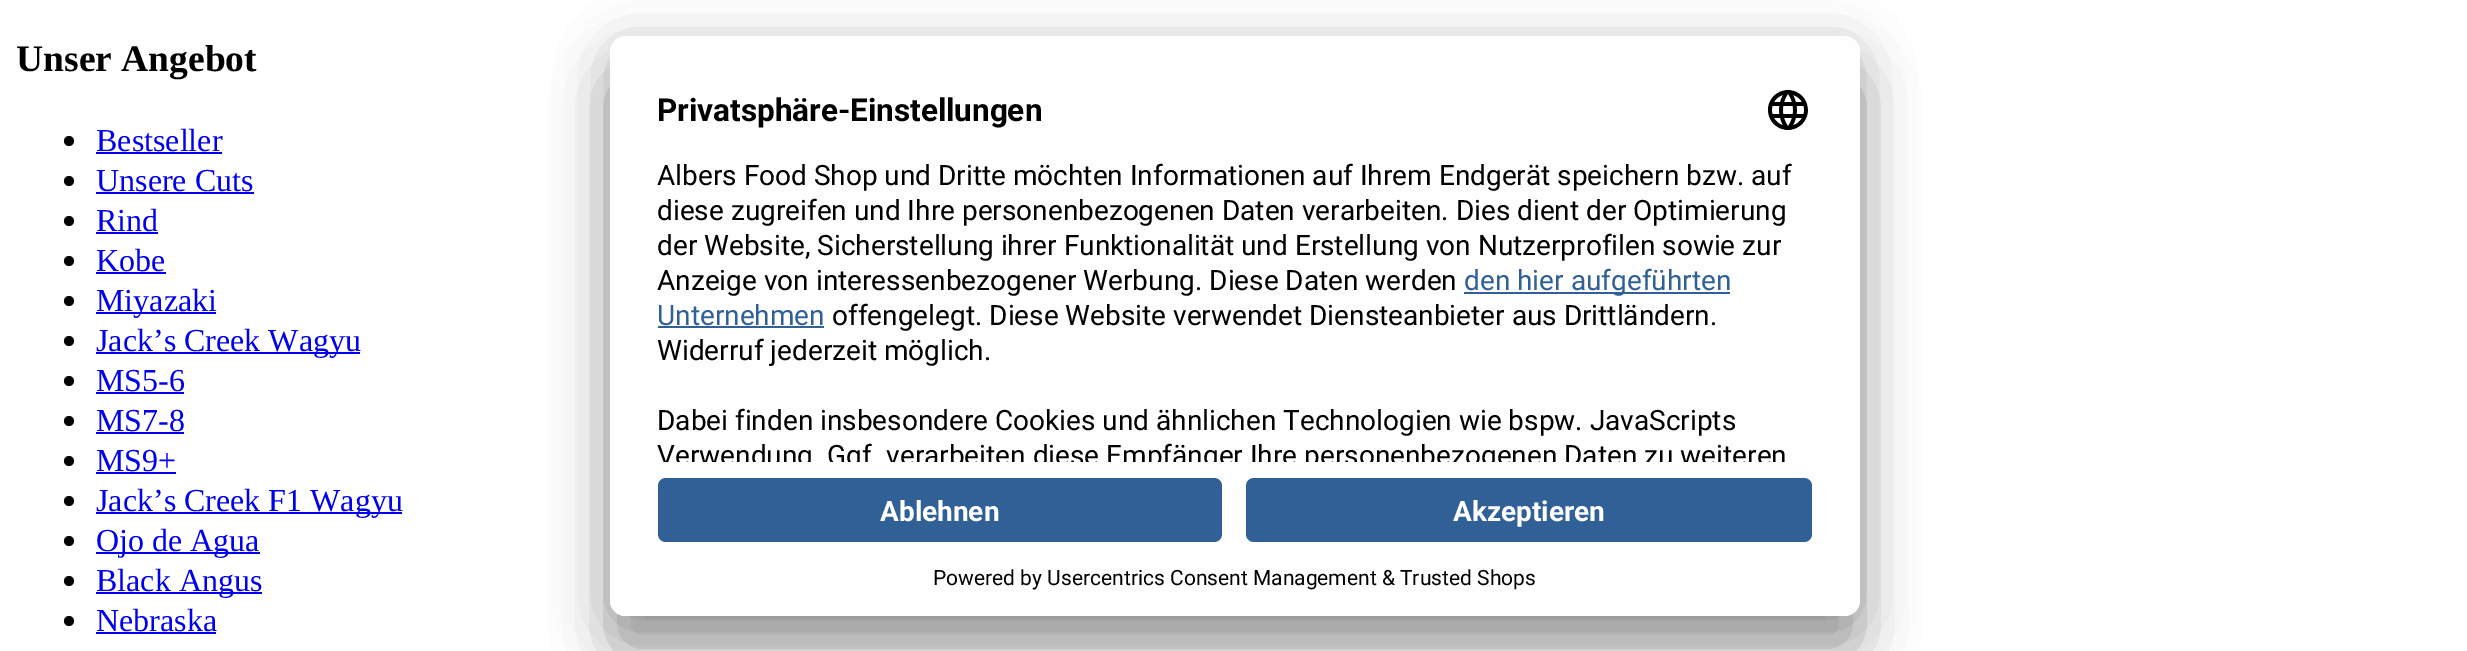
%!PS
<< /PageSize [2467 651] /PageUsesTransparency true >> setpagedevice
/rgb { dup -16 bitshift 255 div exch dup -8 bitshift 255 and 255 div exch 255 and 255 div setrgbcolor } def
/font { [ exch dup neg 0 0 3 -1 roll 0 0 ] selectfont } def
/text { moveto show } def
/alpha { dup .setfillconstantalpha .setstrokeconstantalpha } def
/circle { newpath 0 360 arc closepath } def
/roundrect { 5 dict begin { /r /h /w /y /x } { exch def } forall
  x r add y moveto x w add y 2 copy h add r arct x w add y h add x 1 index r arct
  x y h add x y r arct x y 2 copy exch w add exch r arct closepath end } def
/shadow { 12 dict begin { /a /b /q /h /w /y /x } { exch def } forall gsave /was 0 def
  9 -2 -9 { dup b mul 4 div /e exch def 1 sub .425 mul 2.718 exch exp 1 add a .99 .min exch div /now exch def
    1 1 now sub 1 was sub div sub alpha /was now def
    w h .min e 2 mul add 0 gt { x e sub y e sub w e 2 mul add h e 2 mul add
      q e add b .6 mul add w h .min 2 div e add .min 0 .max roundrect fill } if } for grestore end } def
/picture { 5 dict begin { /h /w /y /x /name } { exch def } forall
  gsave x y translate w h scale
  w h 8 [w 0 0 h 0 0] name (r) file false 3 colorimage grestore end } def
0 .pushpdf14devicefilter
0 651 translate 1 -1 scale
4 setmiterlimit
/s1 { /LiberationSerif-Bold 37.5 font 16#000000 rgb } def
/s2 { /LiberationSerif-Regular 32 font 16#0000EE rgb } def
/s3 { /Roboto-Bold 31.5 font 16#000000 rgb } def
/s4 { /Roboto-Regular 28 font 16#000000 rgb } def
/s5 { /Roboto-Regular 28 font 16#306095 rgb } def
/s6 { /Roboto-Bold 28 font 16#FFFFFF rgb } def
/s7 { /Roboto-Regular 21 font 16#000000 rgb } def
16#FFFFFF rgb
0 0 2467 651 rectfill
s1
(Unser Angebot) 16 71 text
69 141 5 circle fill
s2
(Bestseller) 96 151 text
96 152 126 2 rectfill
16#000000 rgb
69 181 5 circle fill
s2
(Unsere Cuts) 96 191 text
96 192 158 2 rectfill
16#000000 rgb
69 221 5 circle fill
s2
(Rind) 96 231 text
96 232 62 2 rectfill
16#000000 rgb
69 261 5 circle fill
s2
(Kobe) 96 271 text
96 272 70 2 rectfill
16#000000 rgb
69 301 5 circle fill
16#0000EE rgb
96 312 120 2 rectfill
(Miyazaki) 96 311 text
16#000000 rgb
69 341 5 circle fill
16#0000EE rgb
96 352 264 2 rectfill
(Jack’s Creek Wagyu) 96 351 text
16#000000 rgb
69 381 5 circle fill
s2
(MS5-6) 96 391 text
96 392 88 2 rectfill
16#000000 rgb
69 421 5 circle fill
s2
(MS7-8) 96 431 text
96 432 88 2 rectfill
16#000000 rgb
69 461 5 circle fill
s2
(MS9+) 96 471 text
96 472 80 2 rectfill
16#000000 rgb
69 501 5 circle fill
16#0000EE rgb
96 512 306 2 rectfill
(Jack’s Creek F1 Wagyu) 96 511 text
16#000000 rgb
69 541 5 circle fill
16#0000EE rgb
96 552 164 2 rectfill
(Ojo de Agua) 96 551 text
16#000000 rgb
69 581 5 circle fill
16#0000EE rgb
96 592 166 2 rectfill
(Black Angus) 96 591 text
16#000000 rgb
69 621 5 circle fill
s2
(Nebraska) 96 631 text
96 632 120 2 rectfill
16#000000 rgb
610 76 1250 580 16 28 0.3 shadow
610 46 1250 580 16 26 0.22 shadow
16#FEFEFE rgb
610 36 1250 580 16 roundrect fill
s3
(Privatsphäre-Einstellungen) 657 121 text
(pic1.raw) 1768 90 40 40 picture
s4
(Albers Food Shop und Dritte möchten Informationen auf Ihrem Endgerät speichern bzw. auf) 657 185 text
(diese zugreifen und Ihre personenbezogenen Daten verarbeiten. Dies dient der Optimierung) 657 220 text
(der Website, Sicherstellung ihrer Funktionalität und Erstellung von Nutzerprofilen sowie zur) 657 255 text
(Anzeige von interessenbezogener Werbung. Diese Daten werden) 657 290 text
16#306095 rgb
1464 292 266 2 rectfill
(den hier aufgeführten) 1464 290 text
(Unternehmen) 657 325 text
658 326 166 2 rectfill
s4
(offengelegt. Diese Website verwendet Diensteanbieter aus Drittländern.) 832 325 text
(Widerruf jederzeit möglich.) 657 360 text
(Dabei finden insbesondere Cookies und ähnlichen Technologien wie bspw. JavaScripts) 657 430 text
gsave
626 36 moveto 1844 36 lineto 1853 36 1860 43 1860 52 curveto 1860 462 lineto 610 462 lineto 610 52 lineto 610 43 617 36 626 36 curveto closepath clip newpath
(Verwendung. Ggf. verarbeiten diese Empfänger Ihre personenbezogenen Daten zu weiteren) 657 465 text
grestore
16#FEFEFE rgb
610 462 moveto 1860 462 lineto 1860 600 lineto 1860 609 1853 616 1844 616 curveto 626 616 lineto 617 616 610 609 610 600 curveto closepath fill
16#306095 rgb
658 478 564 64 8 roundrect fill
s6
(Ablehnen) 880 521 text
16#306095 rgb
1246 478 566 64 8 roundrect fill
s6
(Akzeptieren) 1453 521 text
s7
(Powered by Usercentrics Consent Management & Trusted Shops) 933 585 text
.poppdf14devicefilter showpage
